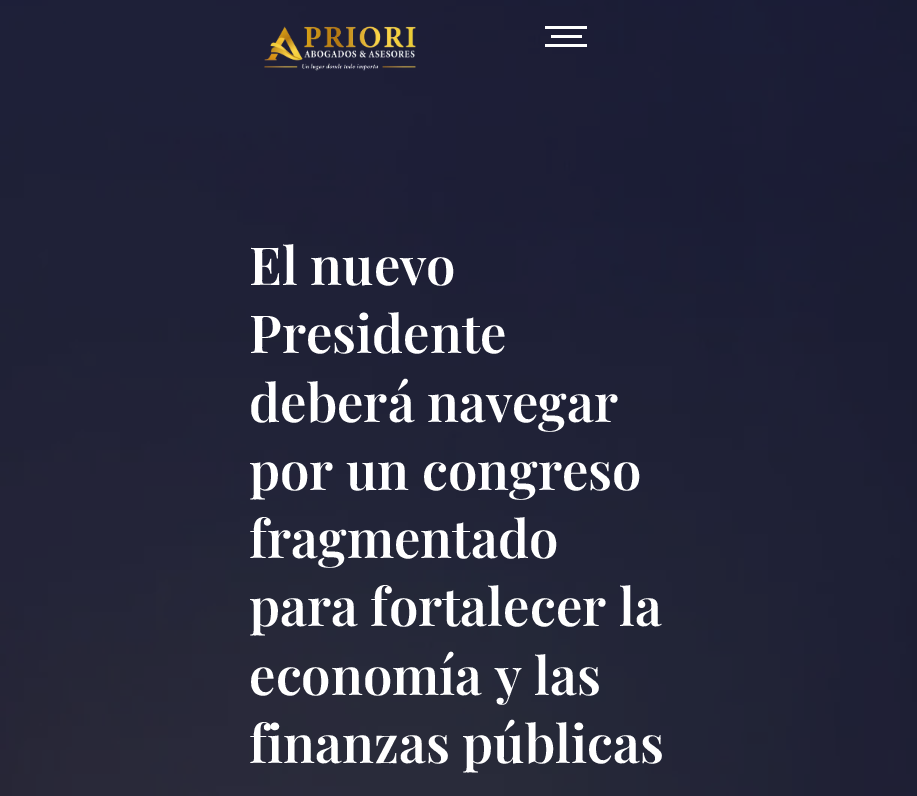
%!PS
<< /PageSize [917 796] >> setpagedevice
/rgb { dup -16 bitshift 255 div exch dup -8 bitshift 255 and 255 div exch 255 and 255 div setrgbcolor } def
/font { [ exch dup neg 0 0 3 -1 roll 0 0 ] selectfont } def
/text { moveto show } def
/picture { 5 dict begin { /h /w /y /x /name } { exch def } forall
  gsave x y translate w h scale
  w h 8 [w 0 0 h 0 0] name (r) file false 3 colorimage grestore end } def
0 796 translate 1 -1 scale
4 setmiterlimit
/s1 { /PlayfairDisplay-SemiBold 52.5 font 16#FFFFFF rgb } def
16#FFFFFF rgb
0 0 917 796 rectfill
(pic2.raw) 0 0 917 796 picture
(pic1.raw) 264 26 152 45 picture
545 26 42 3 rectfill
551 35 31 3 rectfill
545 44 42 3 rectfill
s1
(El nuevo) 249 285 text
(Presidente) 249 353 text
(deberá navegar) 249 422 text
(por un congreso) 249 490 text
(fragmentado) 249 558 text
(para fortalecer la) 249 626 text
(economía y las) 249 695 text
(finanzas públicas) 249 763 text
showpage
